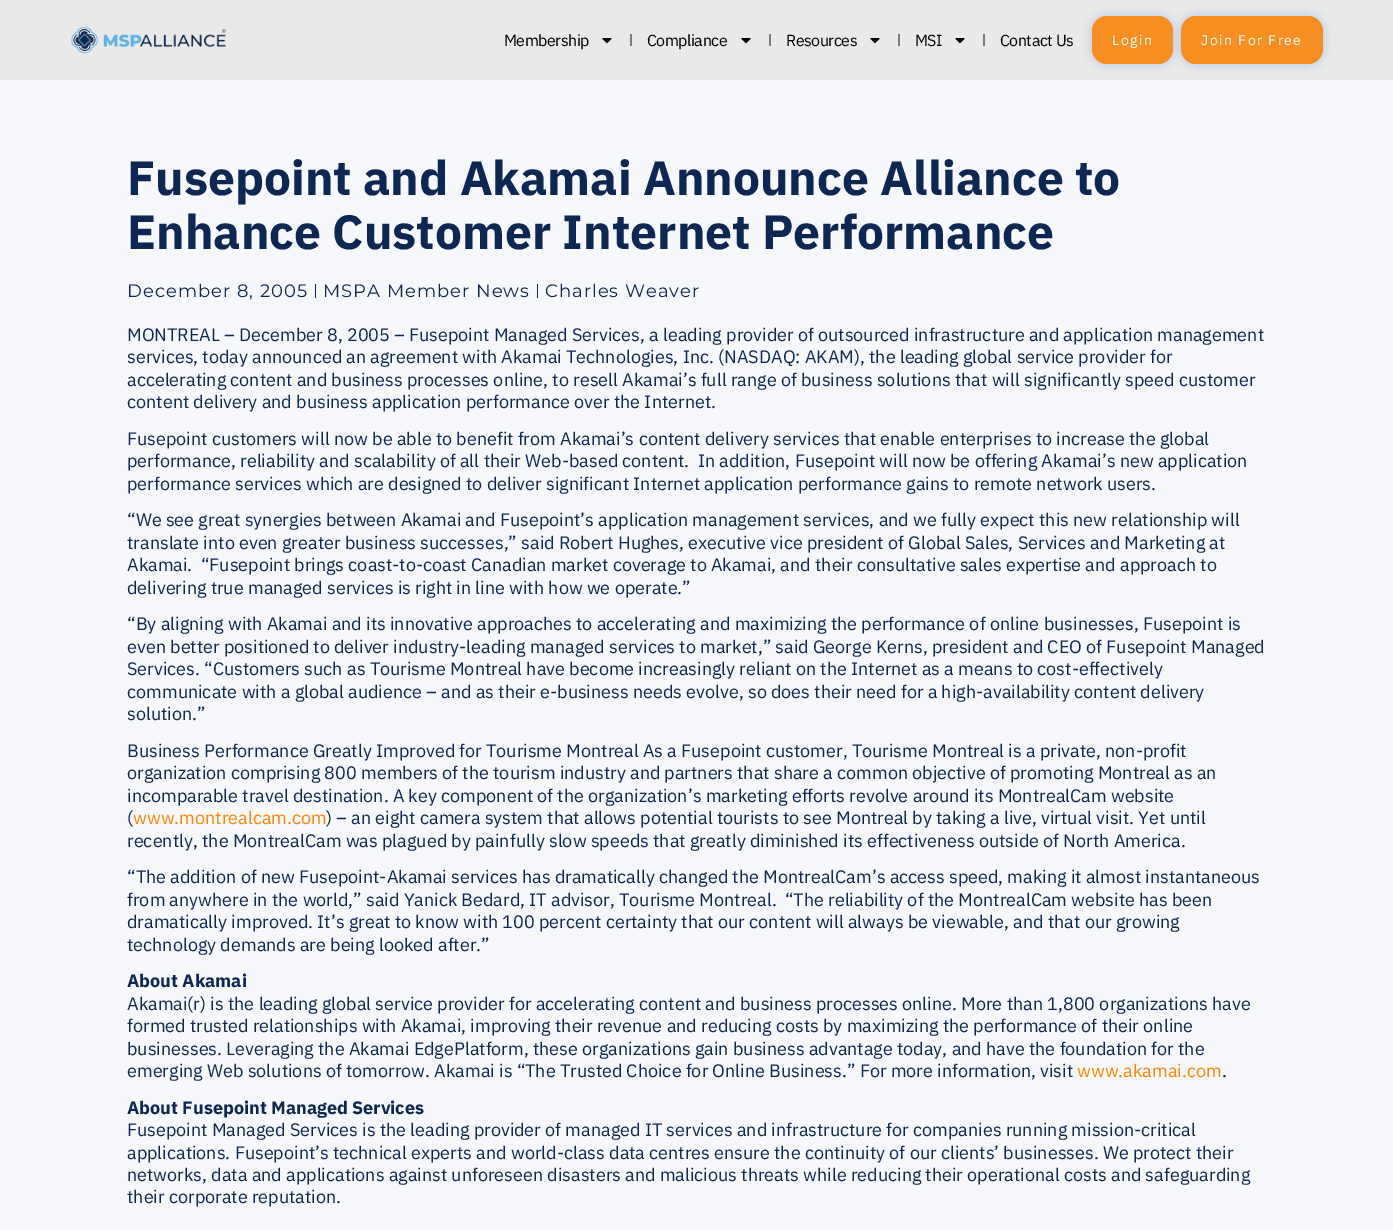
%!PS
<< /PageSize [1393 1230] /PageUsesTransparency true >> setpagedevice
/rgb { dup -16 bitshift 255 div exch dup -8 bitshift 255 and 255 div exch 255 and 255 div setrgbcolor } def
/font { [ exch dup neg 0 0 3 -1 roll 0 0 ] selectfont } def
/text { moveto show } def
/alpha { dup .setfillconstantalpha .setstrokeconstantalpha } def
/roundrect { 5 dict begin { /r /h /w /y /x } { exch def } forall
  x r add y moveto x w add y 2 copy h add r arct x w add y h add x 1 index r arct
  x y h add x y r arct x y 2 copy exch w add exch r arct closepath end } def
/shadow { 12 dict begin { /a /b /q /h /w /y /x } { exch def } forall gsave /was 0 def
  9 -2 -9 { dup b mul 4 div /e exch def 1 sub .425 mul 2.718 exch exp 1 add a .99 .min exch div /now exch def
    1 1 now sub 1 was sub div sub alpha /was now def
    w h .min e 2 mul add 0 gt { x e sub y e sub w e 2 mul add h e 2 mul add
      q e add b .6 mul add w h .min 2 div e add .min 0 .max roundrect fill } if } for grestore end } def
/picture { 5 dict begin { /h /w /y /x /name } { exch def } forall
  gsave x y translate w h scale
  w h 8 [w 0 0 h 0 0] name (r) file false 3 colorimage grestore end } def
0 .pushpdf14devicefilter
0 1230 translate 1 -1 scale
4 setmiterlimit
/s1 { /IBMPlexSans-Bold 48 font 16#0C2753 rgb } def
/s2 { /IBMPlexSans-Regular 18 font 16#0C2753 rgb } def
/s3 { /IBMPlexSans-Regular 18 font 16#FF8400 rgb } def
/s4 { /IBMPlexSans-Bold 18 font 16#0C2753 rgb } def
16#F7F8FB rgb
0 0 1393 1230 rectfill
16#E9E9E9 rgb
0 0 1393 80 rectfill
(pic1.raw) 71 26 155 28 picture
/IBMPlexSans-Regular 16 font
16#000000 rgb
504 46 moveto -0.5 0 (Membership) ashow
(pic2.raw) 602 38 10 6 picture
16#7A7A7A rgb
630 34 2 12 rectfill
16#000000 rgb
647 46 moveto -0.5 0 (Compliance) ashow
(pic2.raw) 741 38 10 6 picture
16#7A7A7A rgb
769 34 2 12 rectfill
16#000000 rgb
786 46 moveto -0.5 0 (Resources) ashow
(pic2.raw) 870 38 10 6 picture
16#7A7A7A rgb
898 34 2 12 rectfill
16#000000 rgb
915 46 moveto -0.5 0 (MSI) ashow
(pic2.raw) 955 38 10 6 picture
16#7A7A7A rgb
983 34 2 12 rectfill
16#000000 rgb
1000 46 moveto -0.5 0 (Contact Us) ashow
16#4081E5 rgb
1092 16 81 48 15 5 0.35 shadow
16#F78F20 rgb
1092 16 81 48 15 roundrect fill
/IBMPlexSans-Regular 14 font
16#FFFFFF rgb
1112 45 moveto 1.5 0 (Login) ashow
16#4081E5 rgb
1181 16 142 48 15 5 0.35 shadow
16#F78F20 rgb
1181 16 142 48 15 roundrect fill
16#FFFFFF rgb
1201 45 moveto 1.5 0 (Join For Free) ashow
s1
(Fusepoint and Akamai Announce Alliance to) 127 195 text
(Enhance Customer Internet Performance) 127 249 text
/Montserrat-Regular 18 font
127 297 moveto 1 0 (December 8, 2005) ashow
315 284 1 14 rectfill
323 297 moveto 1 0 (MSPA Member News) ashow
537 284 1 14 rectfill
545 297 moveto 1 0 (Charles Weaver) ashow
s2
(MONTREAL – December 8, 2005 – Fusepoint Managed Services, a leading provider of outsourced infrastructure and application management) 127 341 text
(services, today announced an agreement with Akamai Technologies, Inc. \(NASDAQ: AKAM\), the leading global service provider for) 127 363 text
(accelerating content and business processes online, to resell Akamai’s full range of business solutions that will significantly speed customer) 127 386 text
(content delivery and business application performance over the Internet.) 127 408 text
(Fusepoint customers will now be able to benefit from Akamai’s content delivery services that enable enterprises to increase the global) 127 445 text
(performance, reliability and scalability of all their Web-based content.  In addition, Fusepoint will now be offering Akamai’s new application) 127 467 text
(performance services which are designed to deliver significant Internet application performance gains to remote network users.) 127 490 text
(“We see great synergies between Akamai and Fusepoint’s application management services, and we fully expect this new relationship will) 127 526 text
(translate into even greater business successes,” said Robert Hughes, executive vice president of Global Sales, Services and Marketing at) 127 549 text
(Akamai.  “Fusepoint brings coast-to-coast Canadian market coverage to Akamai, and their consultative sales expertise and approach to) 127 571 text
(delivering true managed services is right in line with how we operate.”) 127 594 text
(“By aligning with Akamai and its innovative approaches to accelerating and maximizing the performance of online businesses, Fusepoint is) 127 630 text
(even better positioned to deliver industry-leading managed services to market,” said George Kerns, president and CEO of Fusepoint Managed) 127 653 text
(Services. “Customers such as Tourisme Montreal have become increasingly reliant on the Internet as a means to cost-effectively) 127 675 text
(communicate with a global audience – and as their e-business needs evolve, so does their need for a high-availability content delivery) 127 698 text
(solution.”) 127 720 text
(Business Performance Greatly Improved for Tourisme Montreal As a Fusepoint customer, Tourisme Montreal is a private, non-profit) 127 757 text
(organization comprising 800 members of the tourism industry and partners that share a common objective of promoting Montreal as an) 127 779 text
(incomparable travel destination. A key component of the organization’s marketing efforts revolve around its MontrealCam website) 127 802 text
(\() 127 824 text
s3
(www.montrealcam.com) 133 824 text
s2
(\) – an eight camera system that allows potential tourists to see Montreal by taking a live, virtual visit. Yet until) 326 824 text
(recently, the MontrealCam was plagued by painfully slow speeds that greatly diminished its effectiveness outside of North America.) 127 847 text
(“The addition of new Fusepoint-Akamai services has dramatically changed the MontrealCam’s access speed, making it almost instantaneous) 127 883 text
(from anywhere in the world,” said Yanick Bedard, IT advisor, Tourisme Montreal.  “The reliability of the MontrealCam website has been) 127 906 text
(dramatically improved. It’s great to know with 100 percent certainty that our content will always be viewable, and that our growing) 127 928 text
(technology demands are being looked after.”) 127 951 text
s4
(About Akamai) 127 987 text
s2
(Akamai\(r\) is the leading global service provider for accelerating content and business processes online. More than 1,800 organizations have) 127 1010 text
(formed trusted relationships with Akamai, improving their revenue and reducing costs by maximizing the performance of their online) 127 1032 text
(businesses. Leveraging the Akamai EdgePlatform, these organizations gain business advantage today, and have the foundation for the) 127 1055 text
(emerging Web solutions of tomorrow. Akamai is “The Trusted Choice for Online Business.” For more information, visit) 127 1077 text
s3
(www.akamai.com) 1077 1077 text
s2
(.) 1222 1077 text
s4
(About Fusepoint Managed Services) 127 1114 text
s2
(Fusepoint Managed Services is the leading provider of managed IT services and infrastructure for companies running mission-critical) 127 1136 text
(applications. Fusepoint’s technical experts and world-class data centres ensure the continuity of our clients’ businesses. We protect their) 127 1159 text
(networks, data and applications against unforeseen disasters and malicious threats while reducing their operational costs and safeguarding) 127 1181 text
(their corporate reputation.) 127 1203 text
.poppdf14devicefilter showpage
